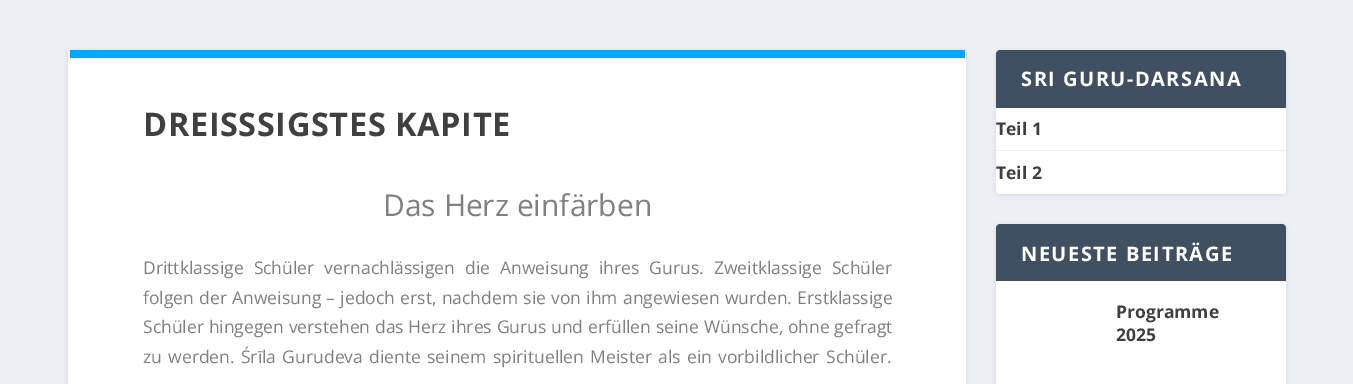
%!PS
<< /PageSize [1353 384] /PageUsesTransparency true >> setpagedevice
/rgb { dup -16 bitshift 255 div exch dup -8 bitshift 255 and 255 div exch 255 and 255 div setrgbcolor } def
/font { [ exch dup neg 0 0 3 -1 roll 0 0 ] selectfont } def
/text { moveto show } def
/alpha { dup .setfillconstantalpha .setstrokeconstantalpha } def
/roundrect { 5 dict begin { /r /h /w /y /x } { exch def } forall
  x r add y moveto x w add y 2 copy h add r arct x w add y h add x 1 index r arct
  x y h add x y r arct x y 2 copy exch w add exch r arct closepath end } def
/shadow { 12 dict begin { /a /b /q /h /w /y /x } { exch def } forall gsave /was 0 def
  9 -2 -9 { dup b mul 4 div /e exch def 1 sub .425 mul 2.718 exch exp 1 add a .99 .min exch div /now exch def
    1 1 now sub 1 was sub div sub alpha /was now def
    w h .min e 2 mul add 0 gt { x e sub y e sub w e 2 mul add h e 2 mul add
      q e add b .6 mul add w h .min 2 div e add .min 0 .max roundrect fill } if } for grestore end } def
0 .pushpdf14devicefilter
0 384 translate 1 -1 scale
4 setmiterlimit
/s1 { /OpenSans-Regular 30 font 16#808080 rgb } def
/s2 { /OpenSans-Bold 17.5 font 16#404040 rgb } def
16#ECF0F5 rgb
0 0 1353 384 rectfill
16#000000 rgb
68 51 898 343 4 2 0.1 shadow
16#FFFFFF rgb
68 50 898 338 4 roundrect fill
16#00A8FF rgb
70 50 895 8 rectfill
/OpenSans-Bold 32.5 font
16#404040 rgb
143 136 moveto 0.6 0 (DREISS) ashow
257 136 moveto 0.6 0 (SIGSTES KAPITE) ashow
s1
(Das Herz einfärben) 383 216 text
/OpenSans-Regular 17.5 font
143 274 moveto 5.5 0 32 (Drittklassige Schüler vernachlässigen die Anweisung ihres Gurus. Zweitklassige Schüler) widthshow
143 304 moveto 0.75 0 32 (folgen der Anweisung – jedoch erst, nachdem sie von ihm angewiesen wurden. Erstklassige) widthshow
143 333 moveto 0.25 0 32 (Schüler hingegen verstehen das Herz ihres Gurus und erfüllen seine Wünsche, ohne gefragt) widthshow
143 363 moveto 1.75 0 32 (zu werden. Śrīla Gurudeva diente seinem spirituellen Meister als ein vorbildlicher Schüler.) widthshow
16#000000 rgb
996 51 290 144 4 2 0.1 shadow
16#FFFFFF rgb
996 50 290 144 4 roundrect fill
16#3E5062 rgb
1000 50 moveto 1282 50 lineto 1284 50 1286 52 1286 54 curveto 1286 108 lineto 996 108 lineto 996 54 lineto 996 52 998 50 1000 50 curveto closepath fill
/OpenSans-Bold 20 font
16#FFFFFF rgb
1021 86 moveto 1.5 0 (SRI GURU-DARSANA) ashow
16#EEEEEE rgb
996 150 290 1 rectfill
s2
(Teil 1) 996 135 text
(Teil 2) 996 179 text
16#000000 rgb
996 225 290 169 4 2 0.1 shadow
16#FFFFFF rgb
996 224 290 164 4 roundrect fill
16#3E5062 rgb
1000 224 moveto 1282 224 lineto 1284 224 1286 226 1286 228 curveto 1286 281 lineto 996 281 lineto 996 228 lineto 996 226 998 224 1000 224 curveto closepath fill
/OpenSans-Bold 20 font
16#FFFFFF rgb
1021 261 moveto 1.5 0 (NEUESTE BEITRÄGE) ashow
s2
(Programme) 1116 318 text
(2025) 1116 341 text
.poppdf14devicefilter showpage
